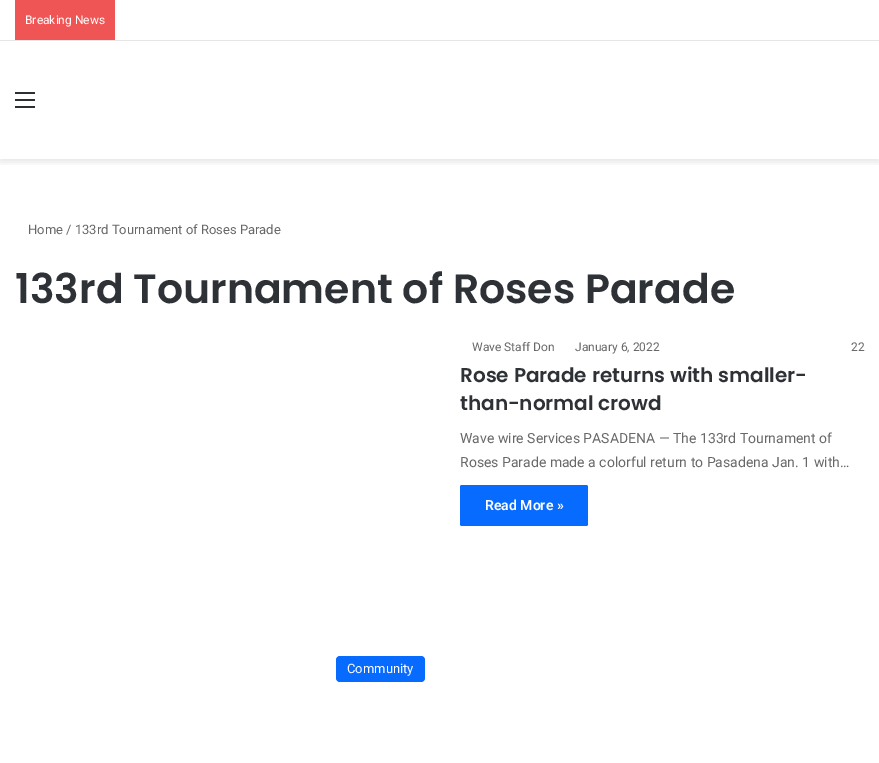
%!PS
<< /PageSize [879 763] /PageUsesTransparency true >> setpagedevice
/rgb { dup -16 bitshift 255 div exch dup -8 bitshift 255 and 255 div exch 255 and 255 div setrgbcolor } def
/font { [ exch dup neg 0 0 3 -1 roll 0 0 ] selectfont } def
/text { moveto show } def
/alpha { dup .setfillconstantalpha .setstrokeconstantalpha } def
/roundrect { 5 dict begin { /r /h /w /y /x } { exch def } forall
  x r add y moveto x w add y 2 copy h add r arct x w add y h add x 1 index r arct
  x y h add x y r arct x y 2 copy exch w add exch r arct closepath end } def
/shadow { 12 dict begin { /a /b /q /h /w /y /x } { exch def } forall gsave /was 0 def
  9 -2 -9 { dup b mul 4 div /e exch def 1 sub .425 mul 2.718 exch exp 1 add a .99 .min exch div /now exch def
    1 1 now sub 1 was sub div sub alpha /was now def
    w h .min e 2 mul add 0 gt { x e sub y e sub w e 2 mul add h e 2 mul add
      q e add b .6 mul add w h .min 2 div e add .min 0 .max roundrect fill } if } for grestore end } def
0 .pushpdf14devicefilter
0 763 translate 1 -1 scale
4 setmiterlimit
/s1 { /Roboto-Regular 12 font 16#FFFFFF rgb } def
/s2 { /Roboto-Regular 13 font 16#686868 rgb } def
/s3 { /Poppins-SemiBold 41 font 16#2E3136 rgb } def
/s4 { /Roboto-Regular 12 font 16#686868 rgb } def
/s5 { /Poppins-SemiBold 20 font 16#2E3136 rgb } def
/s6 { /Roboto-Regular 14 font 16#686868 rgb } def
/s7 { /Roboto-SemiBold 14 font 16#FFFFFF rgb } def
/s8 { /Roboto-Regular 13 font 16#FFFFFF rgb } def
16#FFFFFF rgb
0 0 879 763 rectfill
gsave
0 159 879 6 rectclip
16#000000 rgb
0 44 879 118 0 3.5 0.1 shadow
grestore
16#E6E6E6 rgb
0 40 879 1 rectfill
16#F05555 rgb
15 0 100 40 rectfill
s1
(Breaking News) 25 24 text
16#2C2F34 rgb
15 99 20 2 rectfill
15 92 20 2 rectfill
15 106 20 2 rectfill
s2
(Home / 133rd Tournament of Roses Parade) 28 234 text
s3
(133rd Tournament of Roses Parade) 15 303 text
s4
(Wave Staff Don) 472 351 text
(January 6, 2022) 575 351 text
(22) 851 351 text
s5
(Rose Parade returns with smaller-) 460 382 text
(than-normal crowd) 460 410 text
s6
(Wave wire Services PASADENA — The 133rd Tournament of) 460 443 text
(Roses Parade made a colorful return to Pasadena Jan. 1 with…) 460 467 text
16#086BFF rgb
460 485 128 41 2 roundrect fill
s7
(Read More ») 485 510 text
16#086BFF rgb
336 656 89 26 4 roundrect fill
s8
(Community) 347 673 text
.poppdf14devicefilter showpage
